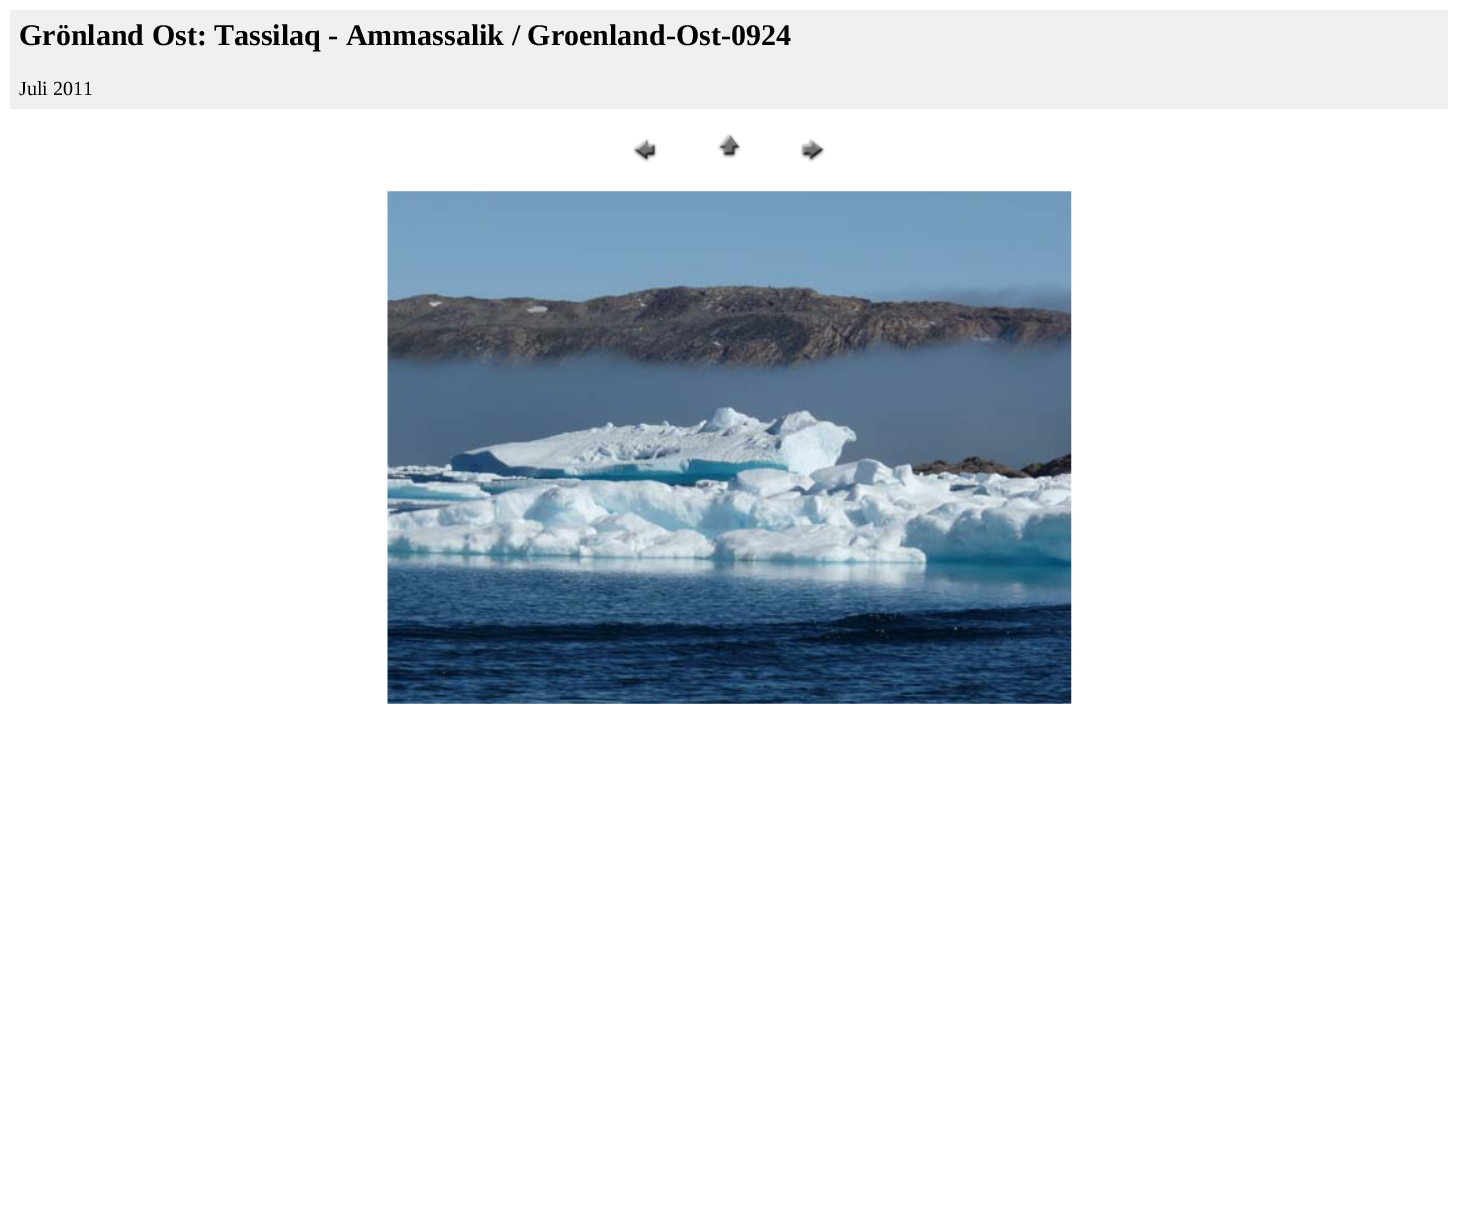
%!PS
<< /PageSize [1457 1215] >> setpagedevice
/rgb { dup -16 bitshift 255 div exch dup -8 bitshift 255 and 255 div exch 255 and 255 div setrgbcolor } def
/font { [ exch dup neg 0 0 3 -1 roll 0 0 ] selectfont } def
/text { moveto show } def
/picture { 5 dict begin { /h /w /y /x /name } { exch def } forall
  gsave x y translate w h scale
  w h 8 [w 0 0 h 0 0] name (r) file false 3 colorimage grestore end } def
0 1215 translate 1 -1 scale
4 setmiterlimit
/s1 { /LiberationSerif-Bold 30 font 16#000000 rgb } def
/s2 { /LiberationSerif-Regular 20 font 16#000000 rgb } def
16#FFFFFF rgb
0 0 1457 1215 rectfill
16#F0F0F0 rgb
10 10 1438 99 rectfill
s1
(Grönland Ost: Tassilaq - Ammassalik / Groenland-Ost-0924) 19 45 text
s2
(Juli 2011) 19 95 text
(pic1.raw) 632 138 25 25 picture
(pic2.raw) 717 133 25 26 picture
(pic3.raw) 800 138 25 25 picture
(pic4.raw) 387 191 685 513 picture
showpage
